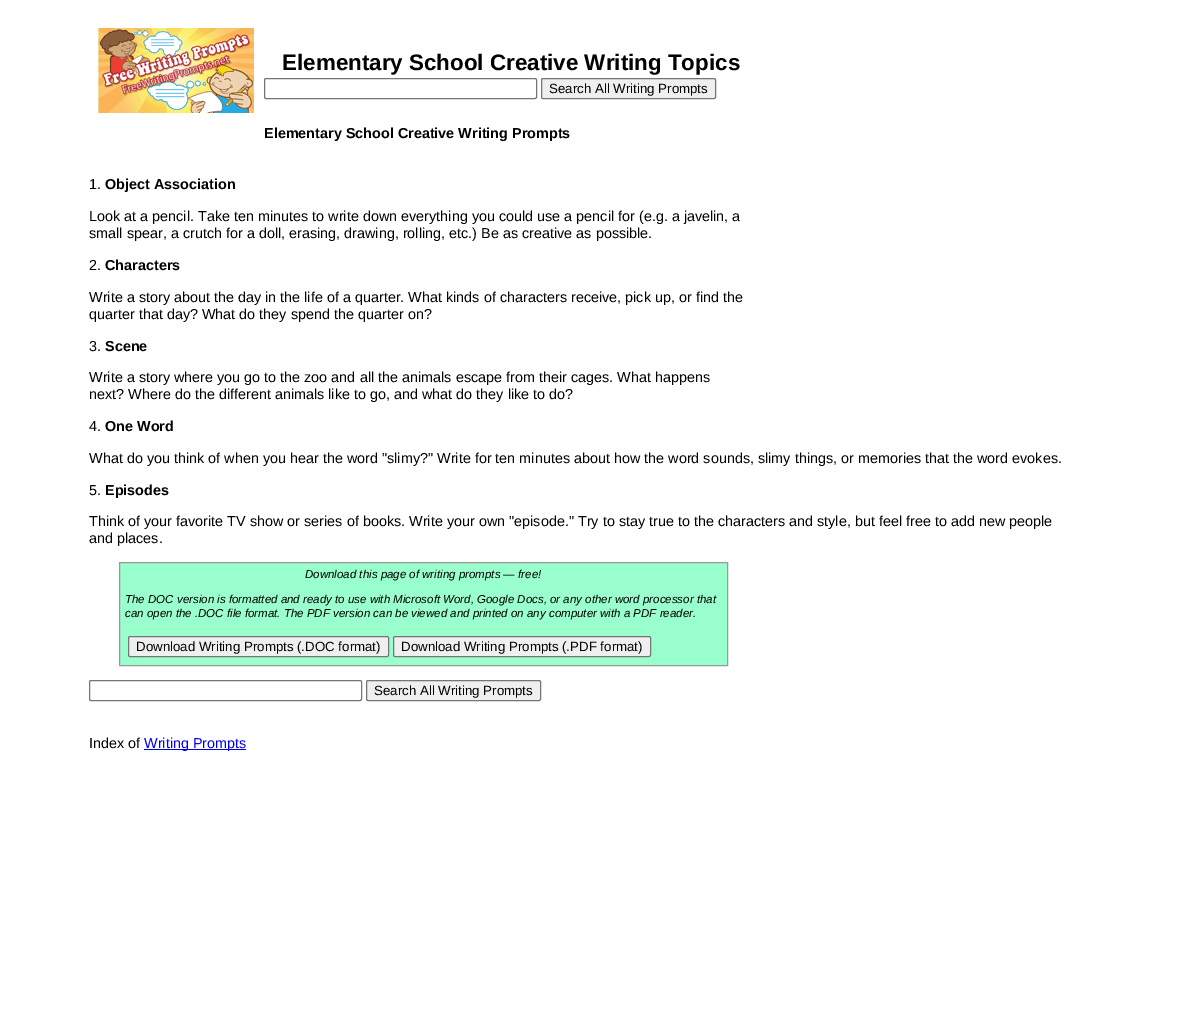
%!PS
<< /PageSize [1178 1027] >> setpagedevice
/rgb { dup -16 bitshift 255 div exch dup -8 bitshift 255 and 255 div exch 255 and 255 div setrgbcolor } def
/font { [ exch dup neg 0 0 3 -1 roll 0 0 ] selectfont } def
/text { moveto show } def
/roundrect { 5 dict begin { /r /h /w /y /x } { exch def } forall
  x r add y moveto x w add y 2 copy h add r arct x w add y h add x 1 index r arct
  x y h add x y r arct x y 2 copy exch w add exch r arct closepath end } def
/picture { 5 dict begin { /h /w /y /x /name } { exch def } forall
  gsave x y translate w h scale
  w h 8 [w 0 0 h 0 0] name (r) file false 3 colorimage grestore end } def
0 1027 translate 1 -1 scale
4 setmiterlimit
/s1 { /LiberationSans-Bold 22.4 font 16#000000 rgb } def
/s2 { /LiberationSans-Regular 13.3 font 16#000000 rgb } def
/s3 { /LiberationSans-Bold 14.4 font 16#000000 rgb } def
/s4 { /LiberationSans-Regular 14.4 font 16#000000 rgb } def
/s5 { /LiberationSans-Italic 11.52 font 16#000000 rgb } def
/s6 { /LiberationSans-Regular 14.4 font 16#0000EE rgb } def
16#FFFFFF rgb
0 0 1178 1027 rectfill
(pic1.raw) 98 28 156 85 picture
s1
(Elementary School Creative Writing Topics) 282 70 text
16#767676 rgb
264.5 78.5 272 20 1.5 roundrect stroke
16#EFEFEF rgb
541.5 78.5 174 20 1.5 roundrect gsave fill grestore
16#767676 rgb
stroke
s2
(Search All Writing Prompts) 549 93 text
s3
(Elementary School Creative Writing Prompts) 264 138 text
s4
(1.) 89 189 text
s3
(Object Association) 105 189 text
s4
(Look at a pencil. Take ten minutes to write down everything you could use a pencil for \(e.g. a javelin, a) 89 221 text
(small spear, a crutch for a doll, erasing, drawing, rolling, etc.\) Be as creative as possible.) 89 238 text
(2.) 89 270 text
s3
(Characters) 105 270 text
s4
(Write a story about the day in the life of a quarter. What kinds of characters receive, pick up, or find the) 89 302 text
(quarter that day? What do they spend the quarter on?) 89 319 text
(3.) 89 351 text
s3
(Scene) 105 351 text
s4
(Write a story where you go to the zoo and all the animals escape from their cages. What happens) 89 382 text
(next? Where do the different animals like to go, and what do they like to do?) 89 399 text
(4.) 89 431 text
s3
(One Word) 105 431 text
s4
(What do you think of when you hear the word "slimy?" Write for ten minutes about how the word sounds, slimy things, or memories that the word evokes.) 89 463 text
(5.) 89 495 text
s3
(Episodes) 105 495 text
s4
(Think of your favorite TV show or series of books. Write your own "episode." Try to stay true to the characters and style, but feel free to add new people) 89 526 text
(and places.) 89 543 text
16#99FFCC rgb
119.5 562.5 moveto 727.5 562.5 lineto 727.5 665.5 lineto 119.5 665.5 lineto closepath gsave fill grestore
16#999999 rgb
stroke
s5
(Download this page of writing prompts — free!) 305 578 text
(The DOC version is formatted and ready to use with Microsoft Word, Google Docs, or any other word processor that) 125 603 text
(can open the .DOC file format. The PDF version can be viewed and printed on any computer with a PDF reader.) 125 617 text
16#EFEFEF rgb
128.5 636.5 260 20 1.5 roundrect gsave fill grestore
16#767676 rgb
stroke
s2
(Download Writing Prompts \(.DOC format\)) 136 651 text
16#EFEFEF rgb
393.5 636.5 257 20 1.5 roundrect gsave fill grestore
16#767676 rgb
stroke
s2
(Download Writing Prompts \(.PDF format\)) 401 651 text
16#767676 rgb
89.5 680.5 272 20 1.5 roundrect stroke
16#EFEFEF rgb
366.5 680.5 174 20 1.5 roundrect gsave fill grestore
16#767676 rgb
stroke
s2
(Search All Writing Prompts) 374 695 text
s4
(Index of) 89 748 text
16#0000EE rgb
144 749 102 1 rectfill
(Writing Prompts) 144 748 text
showpage
